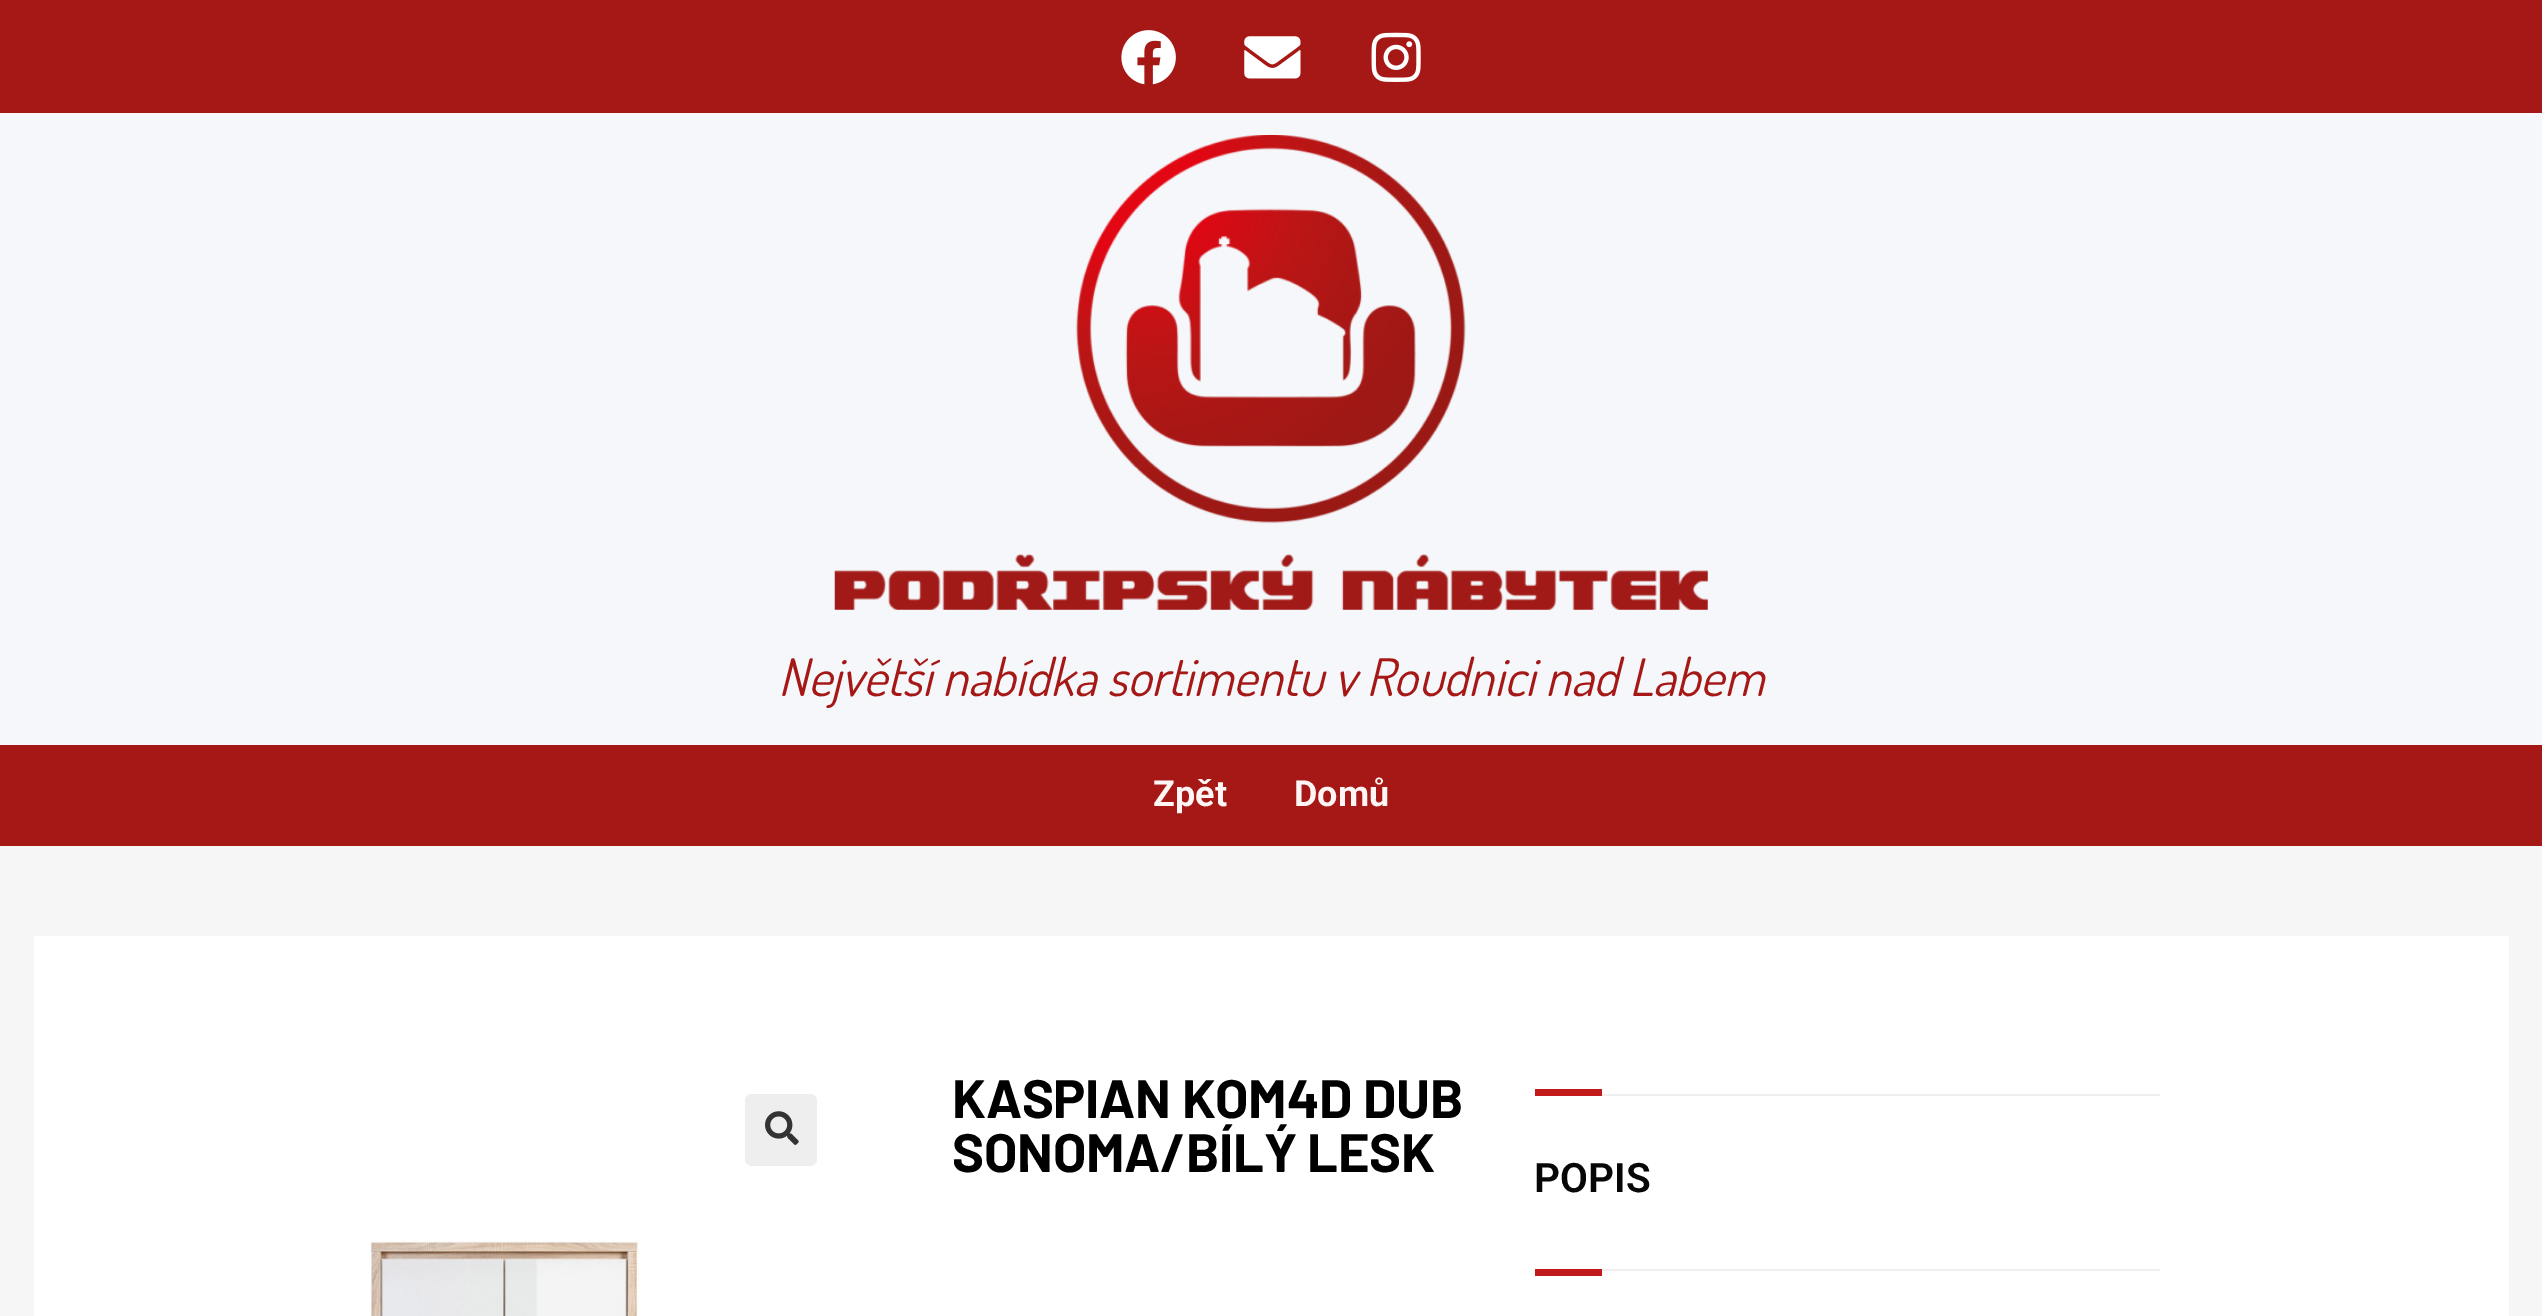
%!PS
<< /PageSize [2542 1316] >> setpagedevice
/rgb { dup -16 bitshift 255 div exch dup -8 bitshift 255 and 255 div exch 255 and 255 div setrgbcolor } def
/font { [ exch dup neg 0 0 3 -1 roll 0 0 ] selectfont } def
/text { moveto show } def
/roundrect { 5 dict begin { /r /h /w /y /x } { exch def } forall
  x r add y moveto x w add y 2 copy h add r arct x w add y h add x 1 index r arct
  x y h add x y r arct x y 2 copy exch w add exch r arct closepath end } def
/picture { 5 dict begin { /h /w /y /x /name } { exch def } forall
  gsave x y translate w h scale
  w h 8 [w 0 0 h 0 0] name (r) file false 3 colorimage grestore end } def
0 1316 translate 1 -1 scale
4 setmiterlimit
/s1 { /Dosis-Italic 51.75 font 16#A51815 rgb } def
/s2 { /Roboto-Bold 36 font 16#FFF5F5 rgb } def
/s3 { /Roboto-SemiBold 40.5 font 16#070707 rgb } def
16#F5F7FA rgb
0 0 2542 1316 rectfill
16#A51815 rgb
0 0 2542 113 rectfill
(pic1.raw) 1121 30 55 55 picture
(pic2.raw) 1244 36 57 43 picture
(pic3.raw) 1371 32 50 50 picture
(pic4.raw) 834 135 874 475 picture
s1
(Největší nabídka sortimentu v Roudnici nad Labem) 778 696 text
0 745 2542 101 rectfill
s2
(Zpět) 1153 806 text
(Domů) 1294 806 text
16#F6F6F6 rgb
0 846 2542 470 rectfill
16#FFFFFF rgb
34 936 2475 380 rectfill
16#EEEEEE rgb
745 1094 72 72 7 roundrect fill
(pic5.raw) 765 1111 34 34 picture
(pic6.raw) 370 1240 269 76 picture
/Barlow-Bold 54 font
16#000000 rgb
952 1118 moveto -0.25 0 (KASPIAN KOM4D DUB) ashow
952 1172 moveto -0.25 0 (SONOMA/BÍLÝ LESK) ashow
16#EFEFEF rgb
1602 1094 558 2 rectfill
1602 1269 558 2 rectfill
16#C21A1A rgb
1535 1089 67 7 rectfill
1535 1269 67 7 rectfill
s3
(POPIS) 1534 1192 text
showpage
